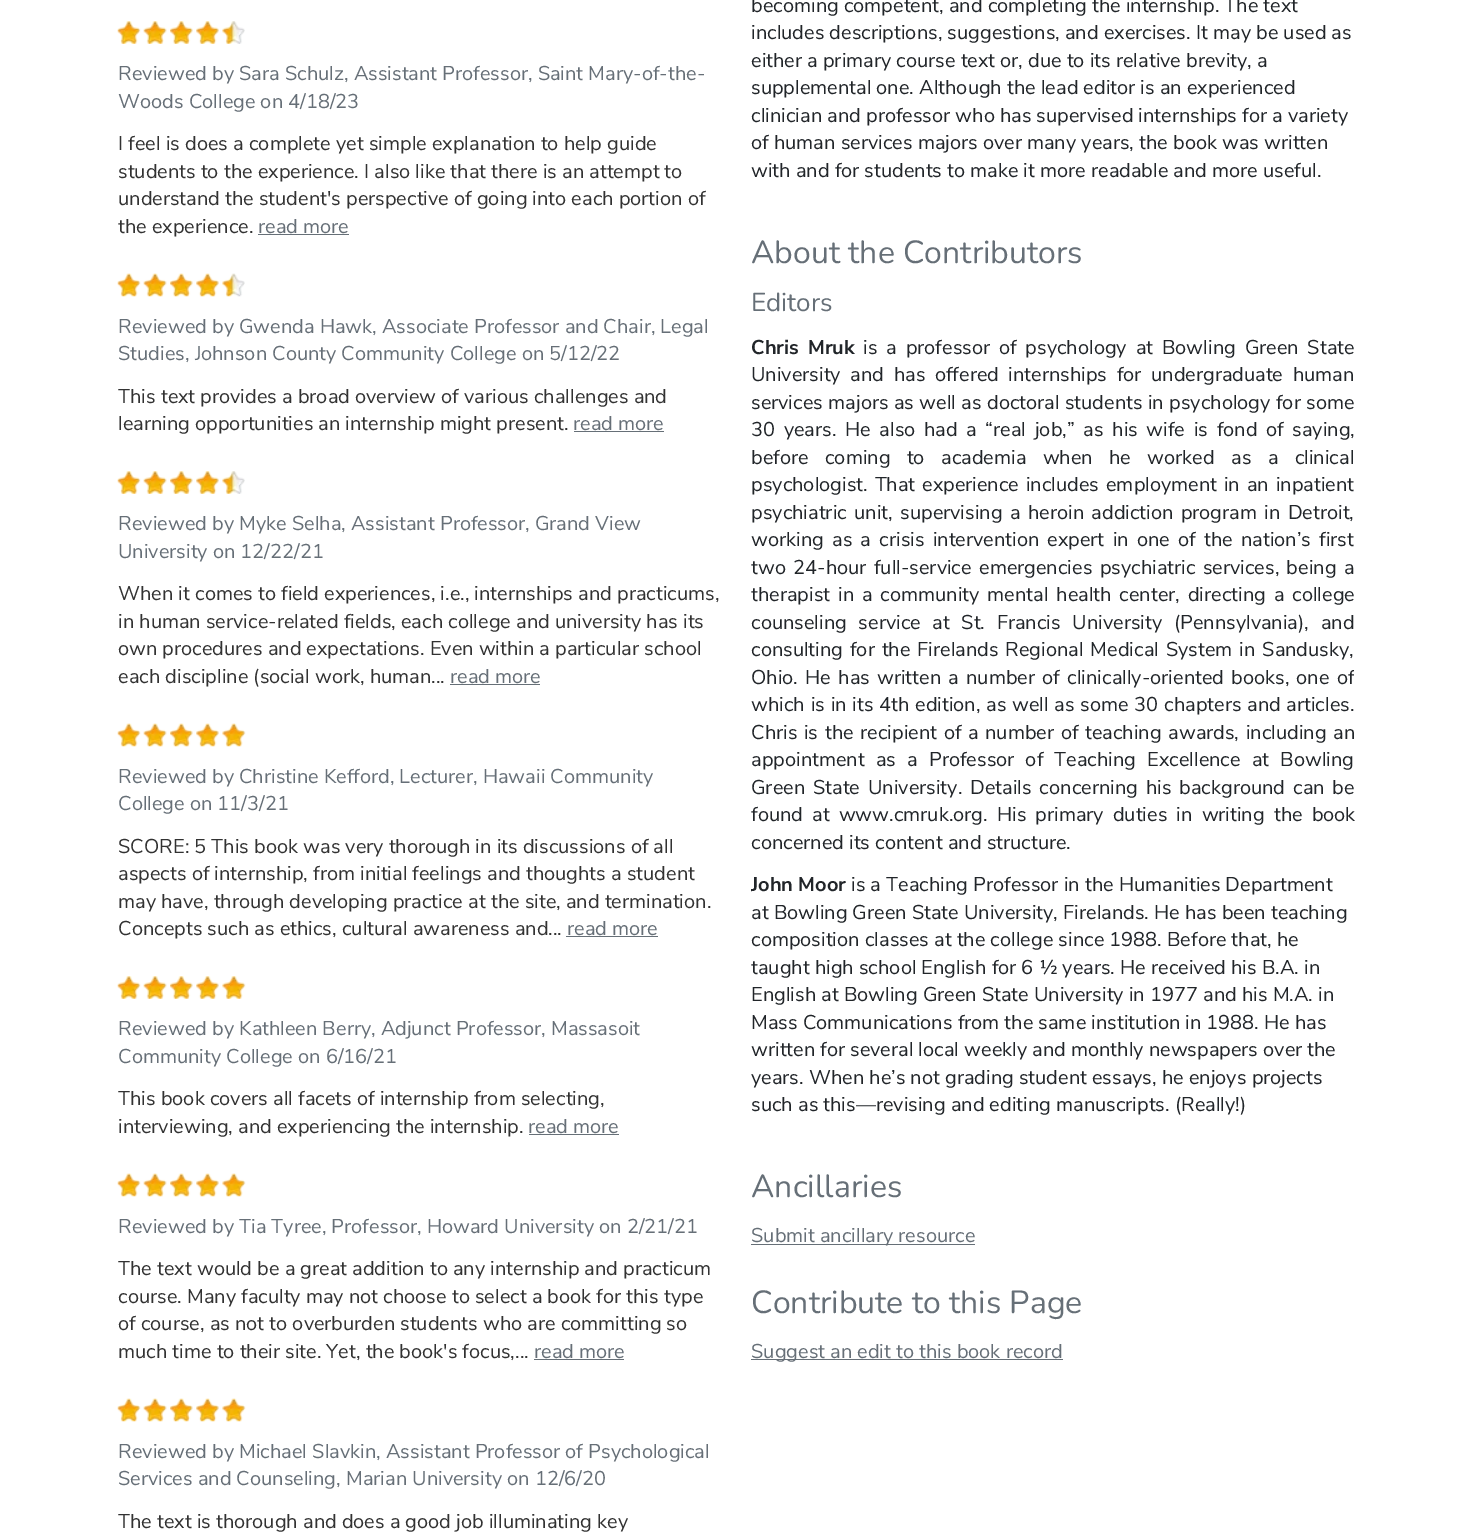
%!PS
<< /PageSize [1484 1535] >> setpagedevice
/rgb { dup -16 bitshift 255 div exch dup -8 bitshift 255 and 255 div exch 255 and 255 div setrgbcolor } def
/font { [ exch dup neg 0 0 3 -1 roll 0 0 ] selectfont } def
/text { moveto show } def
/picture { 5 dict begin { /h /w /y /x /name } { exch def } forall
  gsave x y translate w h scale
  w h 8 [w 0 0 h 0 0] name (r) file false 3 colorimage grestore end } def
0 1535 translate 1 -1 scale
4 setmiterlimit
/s1 { /NunitoSans-Regular 20 font 16#666F77 rgb } def
/s2 { /NunitoSans-Regular 20 font 16#323232 rgb } def
/s3 { /NunitoSans-Regular 20 font 16#212529 rgb } def
/s4 { /Nunito-Regular 32 font 16#666F77 rgb } def
/s5 { /Nunito-Regular 26 font 16#666F77 rgb } def
/s6 { /NunitoSans-Bold 20 font 16#212529 rgb } def
16#FFFFFF rgb
0 0 1484 1535 rectfill
(pic1.raw) 117 21 24 23 picture
(pic2.raw) 143 21 24 23 picture
(pic3.raw) 170 21 23 23 picture
(pic4.raw) 196 21 23 23 picture
(pic5.raw) 222 21 23 23 picture
s1
(Reviewed by Sara Schulz, Assistant Professor, Saint Mary-of-the-) 118 80 text
(Woods College on 4/18/23) 118 108 text
s2
(I feel is does a complete yet simple explanation to help guide) 118 150 text
(students to the experience. I also like that there is an attempt to) 118 178 text
(understand the student's perspective of going into each portion of) 118 205 text
(the experience.) 118 233 text
s1
(read more) 258 233 text
258 234 91 1 rectfill
(pic6.raw) 117 273 24 24 picture
(pic7.raw) 143 273 24 24 picture
(pic8.raw) 170 273 23 24 picture
(pic9.raw) 196 273 23 24 picture
(pic10.raw) 222 273 23 24 picture
(Reviewed by Gwenda Hawk, Associate Professor and Chair, Legal) 118 333 text
(Studies, Johnson County Community College on 5/12/22) 118 360 text
s2
(This text provides a broad overview of various challenges and) 118 403 text
(learning opportunities an internship might present.) 118 430 text
s1
(read more) 573 430 text
574 431 90 1 rectfill
(pic1.raw) 117 471 24 23 picture
(pic2.raw) 143 471 24 23 picture
(pic3.raw) 170 471 23 23 picture
(pic4.raw) 196 471 23 23 picture
(pic5.raw) 222 471 23 23 picture
(Reviewed by Myke Selha, Assistant Professor, Grand View) 118 530 text
(University on 12/22/21) 118 558 text
s2
(When it comes to field experiences, i.e., internships and practicums,) 118 600 text
(in human service-related fields, each college and university has its) 118 628 text
(own procedures and expectations. Even within a particular school) 118 655 text
(each discipline \(social work, human...) 118 683 text
s1
(read more) 450 683 text
450 684 90 1 rectfill
(pic6.raw) 117 723 24 24 picture
(pic7.raw) 143 723 24 24 picture
(pic8.raw) 170 723 23 24 picture
(pic9.raw) 196 723 23 24 picture
(pic11.raw) 222 723 24 24 picture
(Reviewed by Christine Kefford, Lecturer, Hawaii Community) 118 783 text
(College on 11/3/21) 118 810 text
s2
(SCORE: 5 This book was very thorough in its discussions of all) 118 853 text
(aspects of internship, from initial feelings and thoughts a student) 118 880 text
(may have, through developing practice at the site, and termination.) 118 908 text
(Concepts such as ethics, cultural awareness and...) 118 935 text
s1
(read more) 567 935 text
566 936 92 1 rectfill
(pic1.raw) 117 976 24 23 picture
(pic2.raw) 143 976 24 23 picture
(pic3.raw) 170 976 23 23 picture
(pic4.raw) 196 976 23 23 picture
(pic12.raw) 222 976 24 23 picture
(Reviewed by Kathleen Berry, Adjunct Professor, Massasoit) 118 1035 text
(Community College on 6/16/21) 118 1063 text
s2
(This book covers all facets of internship from selecting,) 118 1105 text
(interviewing, and experiencing the internship.) 118 1133 text
s1
(read more) 528 1133 text
529 1134 90 1 rectfill
(pic6.raw) 117 1173 24 24 picture
(pic7.raw) 143 1173 24 24 picture
(pic8.raw) 170 1173 23 24 picture
(pic9.raw) 196 1173 23 24 picture
(pic11.raw) 222 1173 24 24 picture
(Reviewed by Tia Tyree, Professor, Howard University on 2/21/21) 118 1233 text
s2
(The text would be a great addition to any internship and practicum) 118 1275 text
(course. Many faculty may not choose to select a book for this type) 118 1303 text
(of course, as not to overburden students who are committing so) 118 1330 text
(much time to their site. Yet, the book's focus,...) 118 1358 text
s1
(read more) 534 1358 text
534 1359 90 1 rectfill
(pic6.raw) 117 1398 24 24 picture
(pic7.raw) 143 1398 24 24 picture
(pic8.raw) 170 1398 23 24 picture
(pic9.raw) 196 1398 23 24 picture
(pic11.raw) 222 1398 24 24 picture
(Reviewed by Michael Slavkin, Assistant Professor of Psychological) 118 1458 text
(Services and Counseling, Marian University on 12/6/20) 118 1485 text
s2
(The text is thorough and does a good job illuminating key) 118 1528 text
s3
(becoming competent, and completing the internship. The text) 751 12 text
(includes descriptions, suggestions, and exercises. It may be used as) 751 39 text
(either a primary course text or, due to its relative brevity, a) 751 67 text
(supplemental one. Although the lead editor is an experienced) 751 94 text
(clinician and professor who has supervised internships for a variety) 751 122 text
(of human services majors over many years, the book was written) 751 149 text
(with and for students to make it more readable and more useful.) 751 177 text
s4
(About the Contributors) 751 263 text
s5
(Editors) 751 311 text
/NunitoSans-Bold 20 font
16#212529 rgb
751 354 moveto 3.75 0 32 (Chris Mruk) widthshow
/NunitoSans-Regular 20 font
863 354 moveto 3.75 0 32 (is a professor of psychology at Bowling Green State) widthshow
751 381 moveto 4.5 0 32 (University and has offered internships for undergraduate human) widthshow
751 409 moveto 0.25 0 32 (services majors as well as doctoral students in psychology for some) widthshow
751 436 moveto 3.5 0 32 (30 years. He also had a “real job,” as his wife is fond of saying,) widthshow
751 464 moveto 11.25 0 32 (before coming to academia when he worked as a clinical) widthshow
751 491 moveto 1.75 0 32 (psychologist. That experience includes employment in an inpatient) widthshow
751 519 moveto 2.25 0 32 (psychiatric unit, supervising a heroin addiction program in Detroit,) widthshow
751 546 moveto 3.1 0 32 (working as a crisis intervention expert in one of the nation’s first) widthshow
751 574 moveto 2.25 0 32 (two 24-hour full-service emergencies psychiatric services, being a) widthshow
751 601 moveto 2.75 0 32 (therapist in a community mental health center, directing a college) widthshow
751 629 moveto 6.5 0 32 (counseling service at St. Francis University \(Pennsylvania\), and) widthshow
751 656 moveto 1.75 0 32 (consulting for the Firelands Regional Medical System in Sandusky,) widthshow
gsave
751 219 603 915 rectclip
751 684 moveto 2.1 0 32 (Ohio. He has written a number of clinically-oriented books, one of) widthshow
grestore
751 711 moveto 0.6 0 32 (which is in its 4th edition, as well as some 30 chapters and articles.) widthshow
751 739 moveto 1.5 0 32 (Chris is the recipient of a number of teaching awards, including an) widthshow
751 766 moveto 6 0 32 (appointment as a Professor of Teaching Excellence at Bowling) widthshow
751 794 moveto 2.75 0 32 (Green State University. Details concerning his background can be) widthshow
751 821 moveto 4 0 32 (found at www.cmruk.org. His primary duties in writing the book) widthshow
(concerned its content and structure.) 751 849 text
s6
(John Moor) 751 891 text
s3
(is a Teaching Professor in the Humanities Department) 851 891 text
(at Bowling Green State University, Firelands. He has been teaching) 751 919 text
(composition classes at the college since 1988. Before that, he) 751 946 text
(taught high school English for 6 ½ years. He received his B.A. in) 751 974 text
(English at Bowling Green State University in 1977 and his M.A. in) 751 1001 text
(Mass Communications from the same institution in 1988. He has) 751 1029 text
(written for several local weekly and monthly newspapers over the) 751 1056 text
(years. When he’s not grading student essays, he enjoys projects) 751 1084 text
(such as this—revising and editing manuscripts. \(Really!\)) 751 1111 text
s4
(Ancillaries) 751 1197 text
751 1244 224 1 rectfill
s1
(Submit ancillary resource) 751 1242 text
s4
(Contribute to this Page) 751 1313 text
751 1359 312 1 rectfill
s1
(Suggest an edit to this book record) 751 1358 text
showpage
